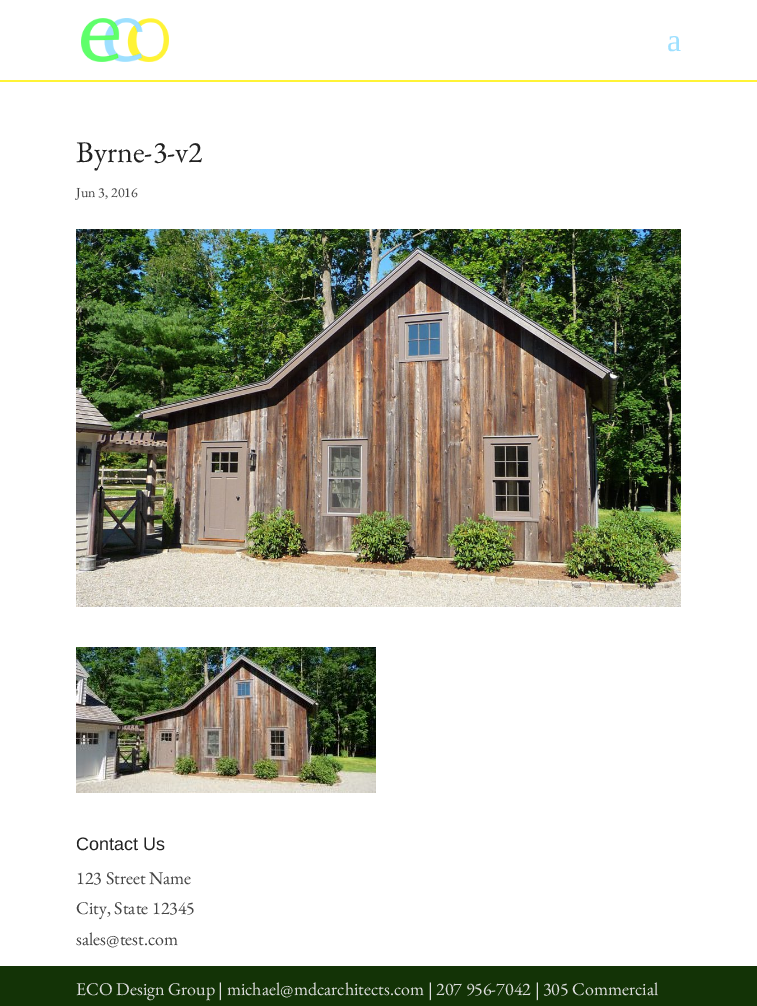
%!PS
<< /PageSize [757 1006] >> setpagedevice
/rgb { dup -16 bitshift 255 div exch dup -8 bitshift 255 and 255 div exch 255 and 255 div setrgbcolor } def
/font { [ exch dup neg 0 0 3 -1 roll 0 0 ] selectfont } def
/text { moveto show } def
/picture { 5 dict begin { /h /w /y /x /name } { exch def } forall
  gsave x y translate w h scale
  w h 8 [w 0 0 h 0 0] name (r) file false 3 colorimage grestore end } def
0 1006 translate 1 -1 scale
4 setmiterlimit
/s1 { /LiberationSerif-Regular 32 font 16#9EE0FF rgb } def
/s2 { /EBGaramond-Regular 30 font 16#222222 rgb } def
/s3 { /EBGaramond-Regular 14 font 16#444444 rgb } def
/s4 { /LiberationSans-Regular 18 font 16#222222 rgb } def
/s5 { /EBGaramond-Regular 18 font 16#444444 rgb } def
/s6 { /EBGaramond-Regular 18 font 16#DDDDDD rgb } def
16#FFFFFF rgb
0 0 757 1006 rectfill
16#FFF336 rgb
0 80 757 2 rectfill
(pic1.raw) 81 18 88 44 picture
s1
(a) 667 51 text
s2
(Byrne-3-v2) 76 162 text
s3
(Jun 3, 2016) 76 197 text
(pic2.raw) 76 229 605 378 picture
(pic3.raw) 76 647 300 146 picture
s4
(Contact Us) 76 850 text
s5
(123 Street Name) 76 884 text
(City, State 12345) 76 914 text
(sales@test.com) 76 945 text
16#133306 rgb
0 966 757 40 rectfill
s6
(ECO Design Group | michael@mdcarchitects.com | 207 956-7042 | 305 Commercial) 76 995 text
showpage
